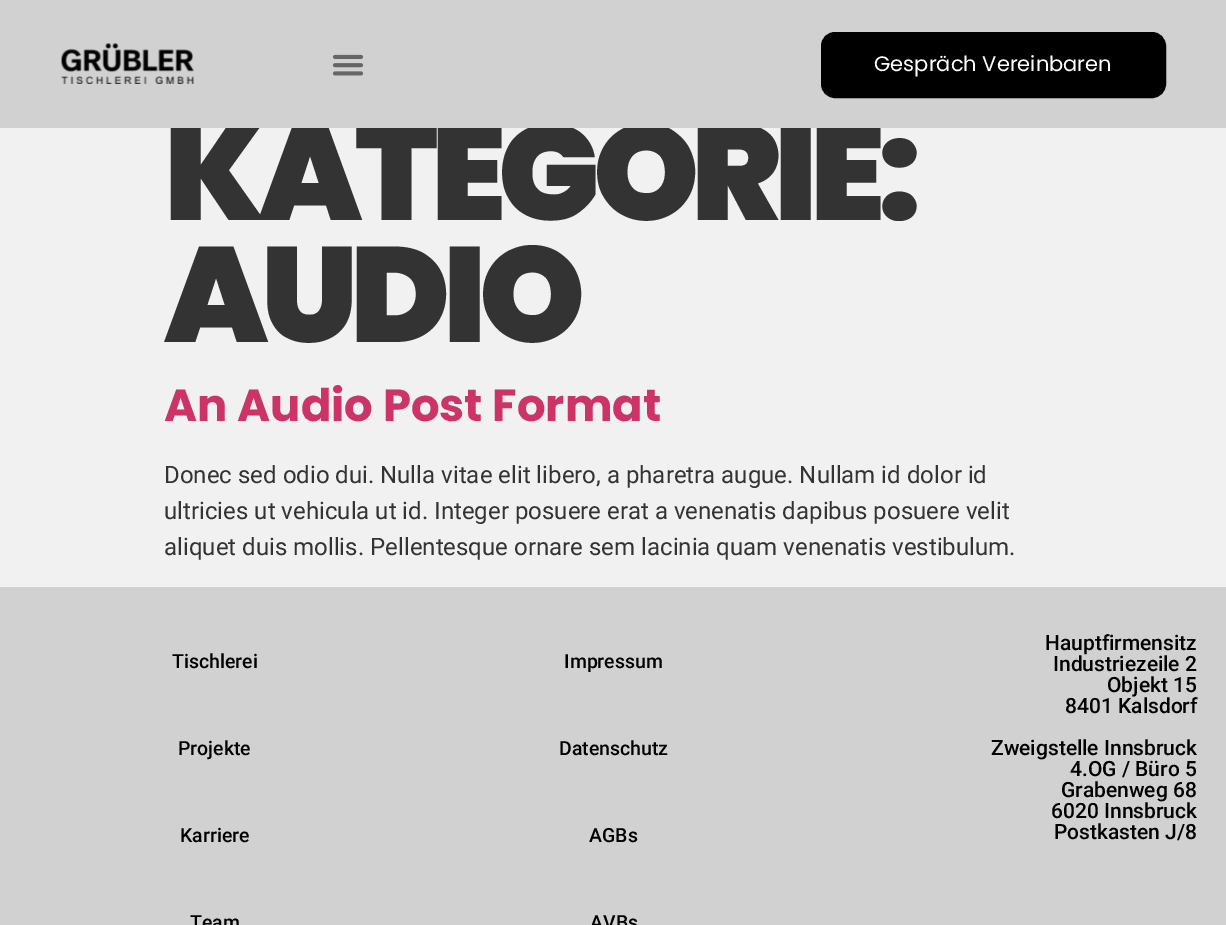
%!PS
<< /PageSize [1226 925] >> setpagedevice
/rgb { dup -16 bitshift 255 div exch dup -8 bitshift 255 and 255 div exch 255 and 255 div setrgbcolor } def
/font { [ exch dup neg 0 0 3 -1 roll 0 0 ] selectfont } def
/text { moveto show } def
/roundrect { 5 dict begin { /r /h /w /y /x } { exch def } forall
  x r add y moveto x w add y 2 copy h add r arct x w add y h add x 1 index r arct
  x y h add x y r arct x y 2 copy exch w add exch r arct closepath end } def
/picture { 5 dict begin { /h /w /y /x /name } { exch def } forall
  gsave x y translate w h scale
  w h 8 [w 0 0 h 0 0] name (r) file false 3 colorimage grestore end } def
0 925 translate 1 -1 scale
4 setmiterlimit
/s1 { /Poppins-Regular 21 font 16#FFFFFF rgb } def
/s2 { /Poppins-Bold 45 font 16#CC3366 rgb } def
/s3 { /Roboto-Regular 24 font 16#333333 rgb } def
/s4 { /Roboto-Medium 19.5 font 16#000000 rgb } def
/s5 { /Roboto-Medium 21 font 16#000000 rgb } def
16#F1F1F1 rgb
0 0 1226 925 rectfill
/Poppins-Black 135 font
16#333333 rgb
164 220 moveto -7.5 0 (KATEGORIE:) ashow
16#D1D1D1 rgb
0 0 1226 128 rectfill
(pic1.raw) 61 43 133 41 picture
(pic2.raw) 332 54 32 22 picture
16#000000 rgb
822 33 343 64 13 roundrect gsave fill grestore
2 setlinewidth
stroke
s1
(Gespräch Vereinbaren) 874 71 text
/Poppins-Black 135 font
16#333333 rgb
164 342 moveto -7.5 0 (AUDIO) ashow
s2
(An Audio Post Format) 164 421 text
s3
(Donec sed odio dui. Nulla vitae elit libero, a pharetra augue. Nullam id dolor id) 164 483 text
(ultricies ut vehicula ut id. Integer posuere erat a venenatis dapibus posuere velit) 164 519 text
(aliquet duis mollis. Pellentesque ornare sem lacinia quam venenatis vestibulum.) 164 555 text
16#D1D1D1 rgb
0 587 1226 338 rectfill
s4
(Tischlerei) 172 668 text
(Projekte) 178 755 text
(Karriere) 180 842 text
(Team) 190 929 text
(Impressum) 564 668 text
(Datenschutz) 559 755 text
(AGBs) 589 842 text
(AVBs) 590 929 text
s5
(Hauptfirmensitz) 1045 650 text
(Industriezeile 2) 1053 671 text
(Objekt 15) 1107 692 text
(8401 Kalsdorf) 1065 713 text
(Zweigstelle Innsbruck) 991 755 text
(4.OG / Büro 5) 1070 776 text
(Grabenweg 68) 1061 797 text
(6020 Innsbruck) 1051 818 text
(Postkasten J/8) 1054 839 text
showpage
